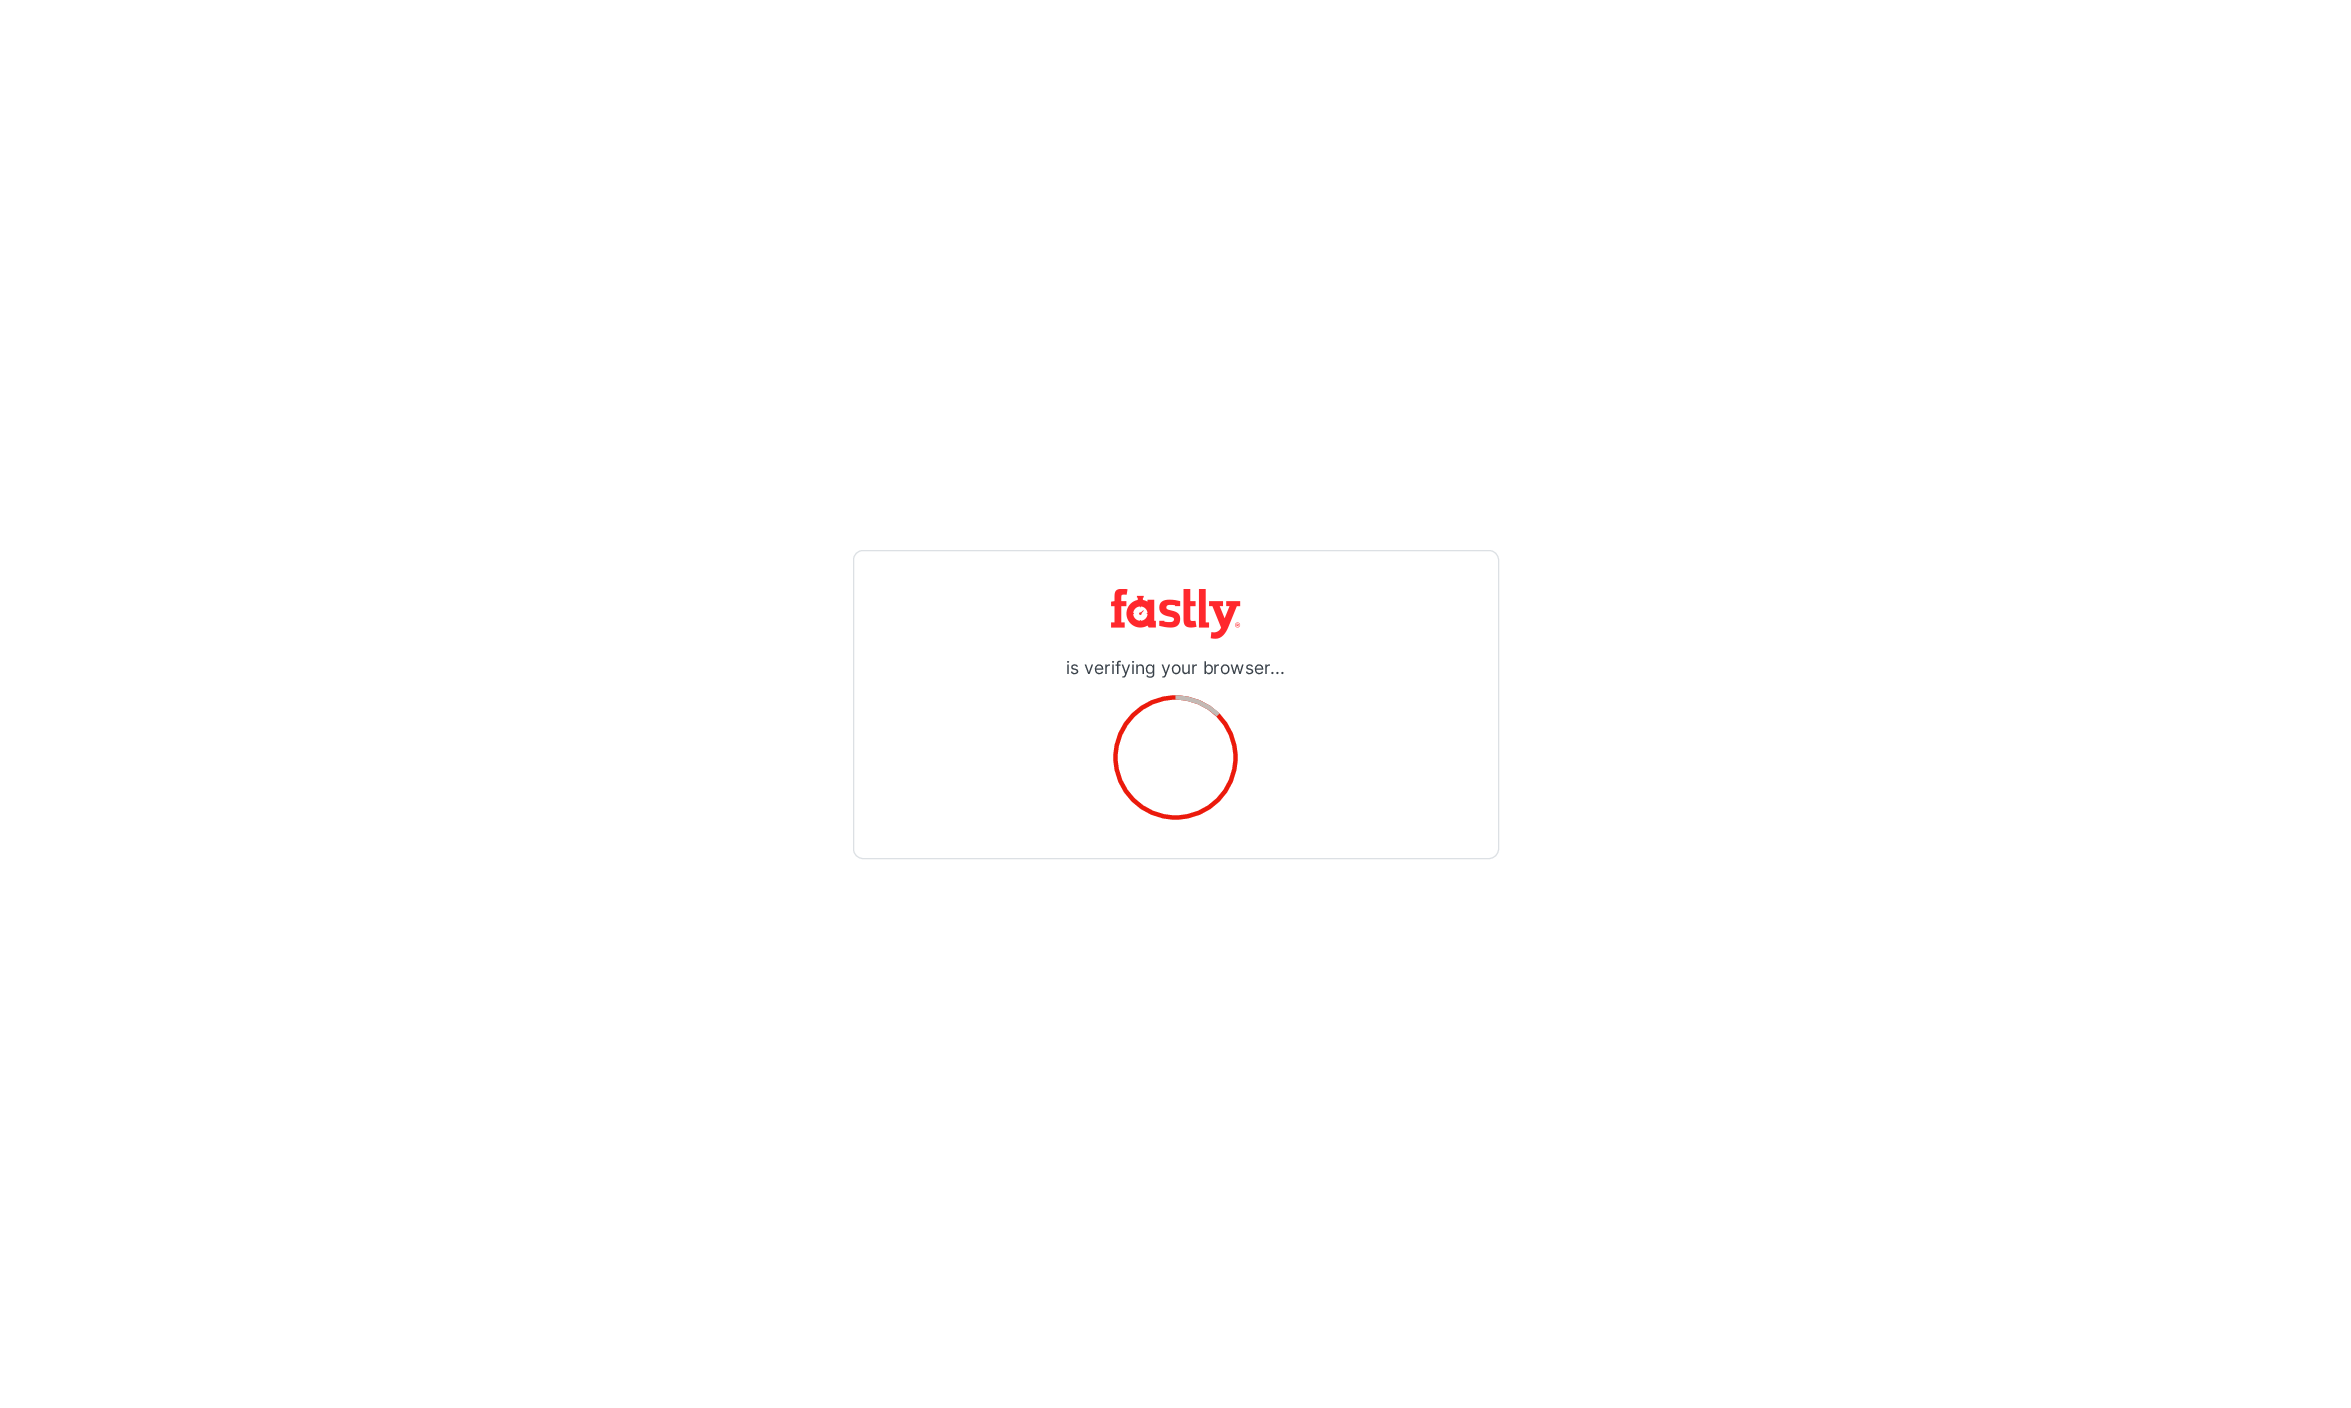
%!PS
<< /PageSize [2351 1408] >> setpagedevice
/rgb { dup -16 bitshift 255 div exch dup -8 bitshift 255 and 255 div exch 255 and 255 div setrgbcolor } def
/font { [ exch dup neg 0 0 3 -1 roll 0 0 ] selectfont } def
/text { moveto show } def
/roundrect { 5 dict begin { /r /h /w /y /x } { exch def } forall
  x r add y moveto x w add y 2 copy h add r arct x w add y h add x 1 index r arct
  x y h add x y r arct x y 2 copy exch w add exch r arct closepath end } def
/picture { 5 dict begin { /h /w /y /x /name } { exch def } forall
  gsave x y translate w h scale
  w h 8 [w 0 0 h 0 0] name (r) file false 3 colorimage grestore end } def
0 1408 translate 1 -1 scale
4 setmiterlimit
/s1 { /Inter-Regular 17.5 font 16#3A424A rgb } def
16#FFFFFF rgb
0 0 2351 1408 rectfill
16#DCE0E4 rgb
853.5 550.5 645 308 9.5 roundrect stroke
(pic1.raw) 1111 589 130 50 picture
s1
(is verifying your browser...) 1066 674 text
16#EB1A0C rgb
4.2 setlinewidth
1115.5 757.5 moveto 1115.5 724.5 1142.5 697.5 1175.5 697.5 curveto 1209 697.5 1235.5 724.5 1235.5 757.5 curveto 1235.5 790.5 1209 817.5 1175.5 817.5 curveto 1142.5 817.5 1115.5 790.5 1115.5 757.5 curveto closepath stroke
16#C2BAB5 rgb
1218 715 moveto 1207 704 1191.5 697.5 1175.5 697.5 curveto stroke
showpage
